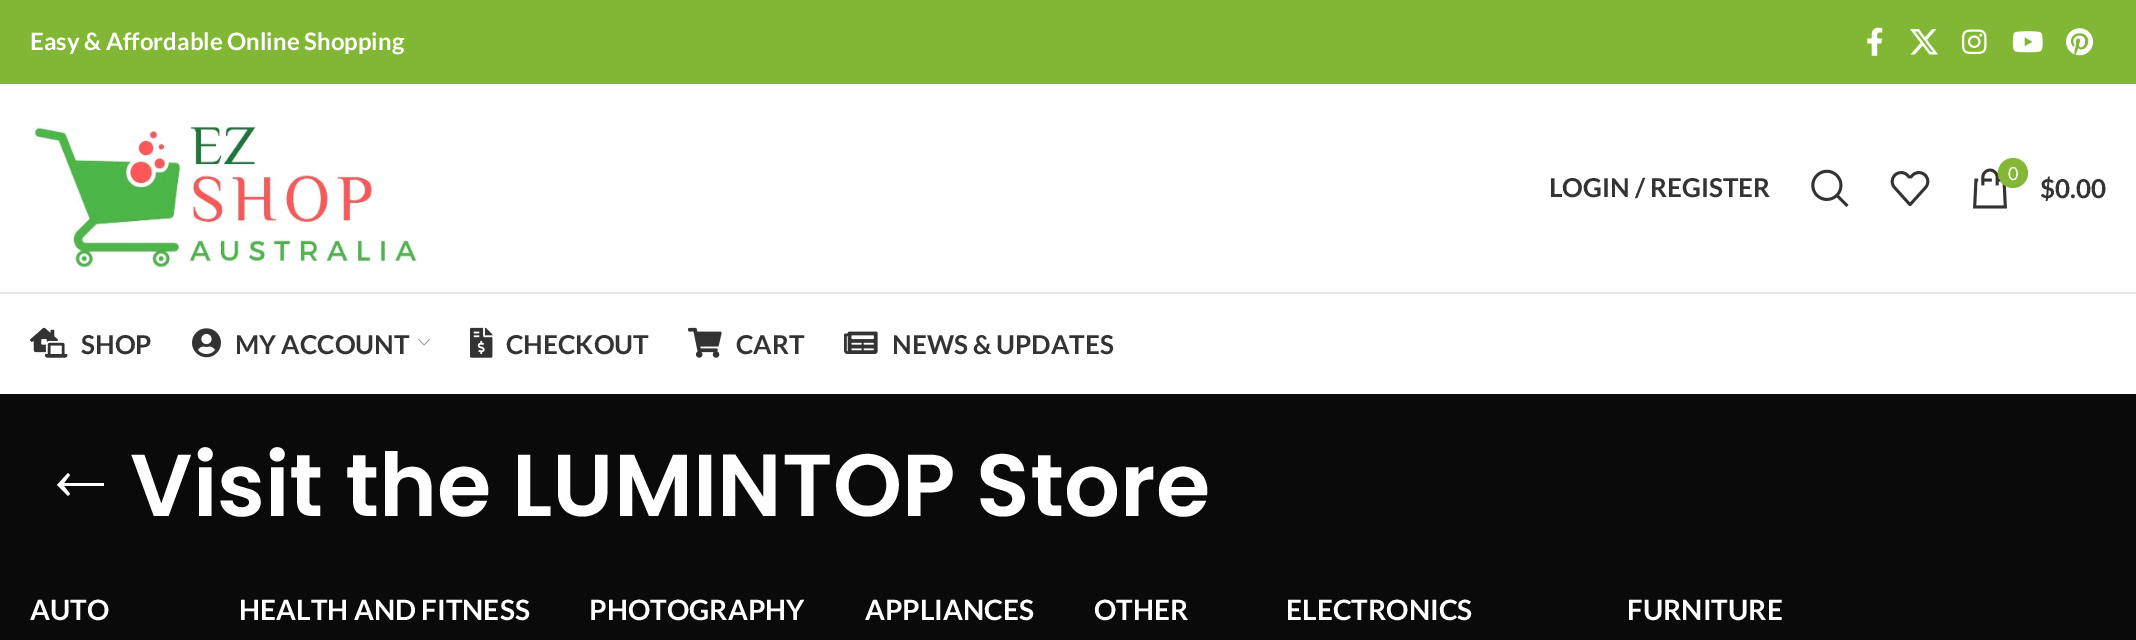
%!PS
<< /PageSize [2136 640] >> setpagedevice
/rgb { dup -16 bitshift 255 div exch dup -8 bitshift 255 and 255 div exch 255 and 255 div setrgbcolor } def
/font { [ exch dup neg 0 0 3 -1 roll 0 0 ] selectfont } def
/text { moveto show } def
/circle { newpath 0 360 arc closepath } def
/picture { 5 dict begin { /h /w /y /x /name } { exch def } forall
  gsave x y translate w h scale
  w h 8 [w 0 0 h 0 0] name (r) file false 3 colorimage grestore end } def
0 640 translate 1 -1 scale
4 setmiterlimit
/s1 { /Lato-Bold 24 font 16#FFFFFF rgb } def
/s2 { /Lato-Bold 26 font 16#333333 rgb } def
/s3 { /Lato-Regular 18 font 16#FFFFFF rgb } def
/s4 { /Poppins-SemiBold 88 font 16#FFFFFF rgb } def
/s5 { /Lato-Bold 28 font 16#FFFFFF rgb } def
16#0A0A0A rgb
0 0 2136 640 rectfill
16#82B735 rgb
0 0 2136 84 rectfill
s1
(Easy & Affordable Online Shopping) 30 50 text
(pic1.raw) 1867 27 16 29 picture
(pic2.raw) 1910 29 28 26 picture
(pic3.raw) 1962 29 25 25 picture
(pic4.raw) 2012 31 31 22 picture
(pic5.raw) 2066 28 28 28 picture
0 84 2136 208 rectfill
16#E6E6E6 rgb
0 292 2136 2 rectfill
(pic6.raw) 33 126 385 144 picture
s2
(LOGIN / REGISTER) 1549 197 text
(pic7.raw) 1811 169 38 38 picture
(pic8.raw) 1890 171 40 35 picture
(pic9.raw) 1973 168 34 41 picture
16#83B735 rgb
2013 173 15 circle fill
s3
(0) 2008 180 text
s2
($0.00) 2040 198 text
16#FFFFFF rgb
0 294 2136 100 rectfill
(pic10.raw) 30 327 38 31 picture
s2
(SHOP) 81 354 text
(pic11.raw) 192 328 29 30 picture
(MY ACCOUNT) 235 354 text
(pic12.raw) 418 339 12 7 picture
(pic13.raw) 470 327 23 31 picture
(CHECKOUT) 506 354 text
(pic14.raw) 688 327 34 31 picture
(CART) 736 354 text
(pic15.raw) 844 331 34 23 picture
(NEWS & UPDATES) 892 354 text
16#FFFFFF rgb
70 494 moveto 64 486 lineto 104 486 lineto 104 483 lineto 64 483 lineto 70 475 lineto 68 473 lineto 57 485 lineto 68 496 lineto closepath fill
s4
(Visit the LUMINTOP Store) 130 516 text
s5
(AUTO) 30 620 text
(HEALTH AND FITNESS) 239 620 text
(PHOTOGRAPHY) 589 620 text
(APPLIANCES) 865 620 text
(OTHER) 1094 620 text
(ELECTRONICS) 1286 620 text
(FURNITURE) 1627 620 text
showpage
